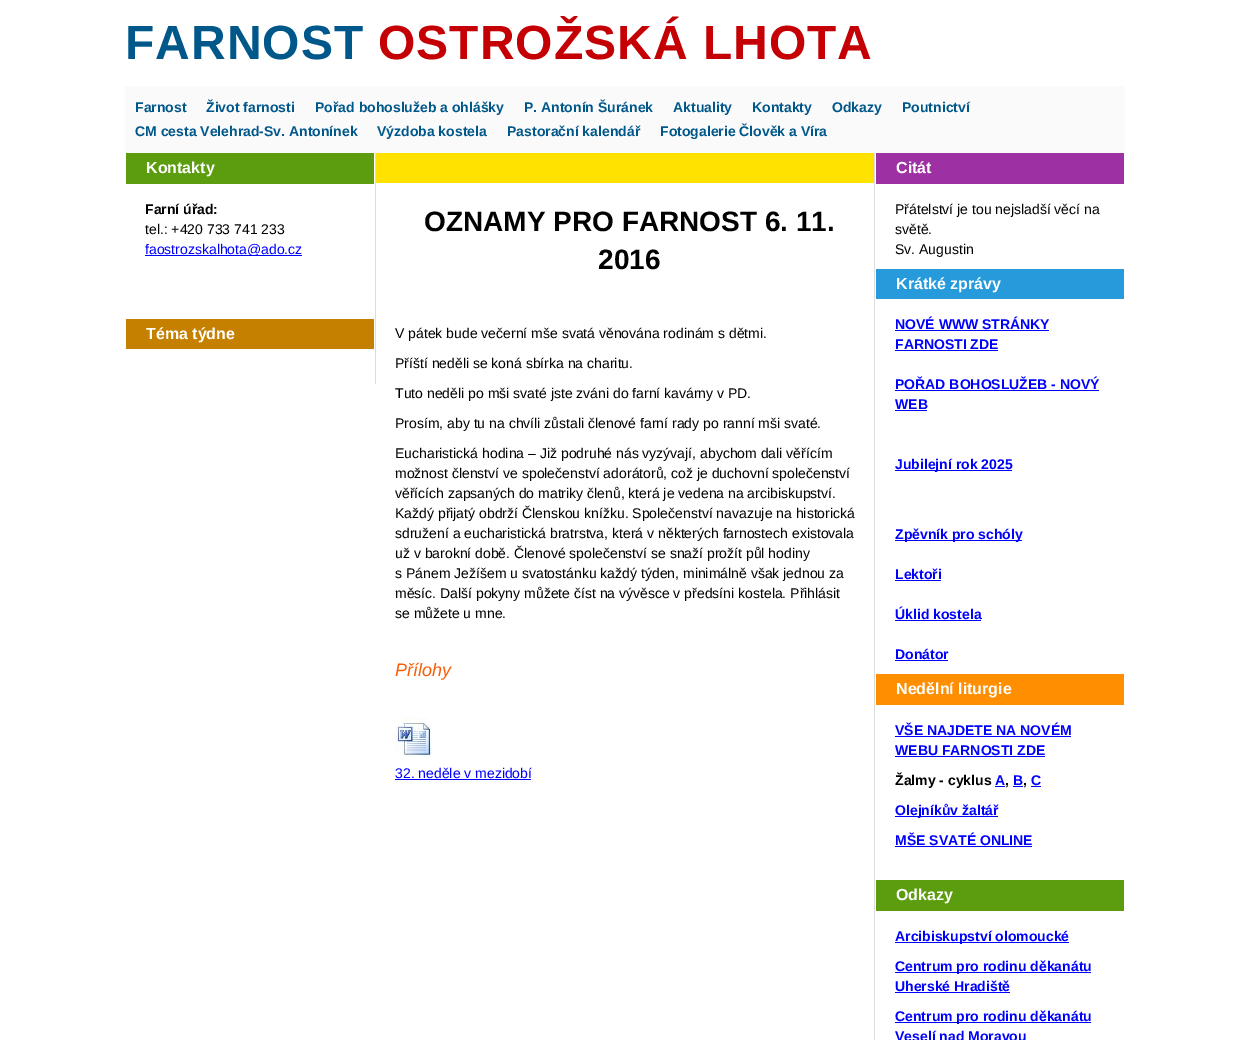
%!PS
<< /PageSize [1249 1040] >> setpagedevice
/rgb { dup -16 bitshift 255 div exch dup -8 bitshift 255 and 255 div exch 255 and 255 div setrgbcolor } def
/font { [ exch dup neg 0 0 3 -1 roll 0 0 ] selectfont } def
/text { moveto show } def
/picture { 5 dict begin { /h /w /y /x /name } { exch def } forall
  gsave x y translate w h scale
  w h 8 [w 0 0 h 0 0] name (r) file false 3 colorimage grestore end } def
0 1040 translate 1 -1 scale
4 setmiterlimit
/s1 { /LiberationSans-Bold 14 font 16#00578A rgb } def
/s2 { /LiberationSans-Bold 16 font 16#FFFFFF rgb } def
/s3 { /LiberationSans-Bold 14 font 16#000000 rgb } def
/s4 { /LiberationSans-Regular 14 font 16#000000 rgb } def
/s5 { /LiberationSans-Regular 14 font 16#0000FF rgb } def
/s6 { /LiberationSans-Bold 28 font 16#000000 rgb } def
/s7 { /LiberationSans-Italic 18 font 16#F95F08 rgb } def
/s8 { /LiberationSans-Bold 14 font 16#0000FF rgb } def
16#FFFFFF rgb
0 0 1249 1040 rectfill
/LiberationSans-Bold 48 font
16#00578A rgb
125 59 moveto 1 0 (FARNOST) ashow
16#C40005 rgb
378 59 moveto 1 0 (OSTROŽSKÁ LHOTA) ashow
16#FAFAFA rgb
125 86 1000 67 rectfill
s1
(Farnost) 135 112 text
(Život farnosti) 206 112 text
(Pořad bohoslužeb a ohlášky) 315 112 text
(P. Antonín Šuránek) 524 112 text
(Aktuality) 673 112 text
(Kontakty) 752 112 text
(Odkazy) 832 112 text
(Poutnictví) 902 112 text
(CM cesta Velehrad-Sv. Antonínek) 135 136 text
(Výzdoba kostela) 377 136 text
(Pastorační kalendář) 507 136 text
(Fotogalerie Člověk a Víra) 660 136 text
16#DDDDDD rgb
375 153 1 231 rectfill
16#5C9D0F rgb
126 153 248 31 rectfill
s2
(Kontakty) 146 173 text
s3
(Farní úřad:) 145 214 text
s4
(tel.: +420 733 741 233) 145 234 text
16#0000FF rgb
145 255 157 1 rectfill
(faostrozskalhota@ado.cz) 145 254 text
16#C68000 rgb
126 319 248 30 rectfill
s2
(Téma týdne) 146 339 text
16#FFE200 rgb
376 153 498 30 rectfill
s6
(OZNAMY PRO FARNOST 6. 11.) 424 231 text
(2016) 598 269 text
s4
(V pátek bude večerní mše svatá věnována rodinám s dětmi.) 395 338 text
(Příští neděli se koná sbírka na charitu.) 395 368 text
(Tuto neděli po mši svaté jste zváni do farní kavárny v PD.) 395 398 text
(Prosím, aby tu na chvíli zůstali členové farní rady po ranní mši svaté.) 395 428 text
(Eucharistická hodina – Již podruhé nás vyzývají, abychom dali věřícím) 395 458 text
(možnost členství ve společenství adorátorů, což je duchovní společenství) 395 478 text
(věřících zapsaných do matriky členů, která je vedena na arcibiskupství.) 395 498 text
(Každý přijatý obdrží Členskou knížku. Společenství navazuje na historická) 395 518 text
(sdružení a eucharistická bratrstva, která v některých farnostech existovala) 395 538 text
(už v barokní době. Členové společenství se snaží prožít půl hodiny) 395 558 text
(s Pánem Ježíšem u svatostánku každý týden, minimálně však jednou za) 395 578 text
(měsíc. Další pokyny můžete číst na vývěsce v předsíni kostela. Přihlásit) 395 598 text
(se můžete u mne.) 395 618 text
s7
(Přílohy) 395 676 text
(pic1.raw) 395 717 37 41 picture
s5
(32. neděle v mezidobí) 395 778 text
395 779 136 1 rectfill
16#DDDDDD rgb
874 153 1 887 rectfill
16#9D31A4 rgb
876 153 248 31 rectfill
s2
(Citát) 896 173 text
s4
(Přátelství je tou nejsladší věcí na) 895 214 text
(světě.) 895 234 text
(Sv. Augustin) 895 254 text
16#269ADB rgb
876 269 248 30 rectfill
s2
(Krátké zprávy) 896 289 text
s8
(NOVÉ WWW STRÁNKY) 895 329 text
895 330 154 1 rectfill
(FARNOSTI ZDE) 895 349 text
895 350 103 1 rectfill
(POŘAD BOHOSLUŽEB - NOVÝ) 895 389 text
895 390 204 1 rectfill
(WEB) 895 409 text
895 410 32 1 rectfill
895 470 117 1 rectfill
(Jubilejní rok 2025) 895 469 text
895 540 127 1 rectfill
(Zpěvník pro schóly) 895 539 text
(Lektoři) 895 579 text
895 580 46 1 rectfill
(Úklid kostela) 895 619 text
895 620 86 1 rectfill
(Donátor) 895 659 text
895 660 53 1 rectfill
16#FF8E00 rgb
876 674 248 31 rectfill
s2
(Nedělní liturgie) 896 694 text
s8
(VŠE NAJDETE NA NOVÉM) 895 735 text
895 736 176 1 rectfill
(WEBU FARNOSTI ZDE) 895 755 text
895 756 150 1 rectfill
s3
(Žalmy - cyklus) 895 785 text
s8
(A) 995 785 text
995 786 10 1 rectfill
s3
(,) 1005 785 text
s8
(B) 1013 785 text
1013 786 10 1 rectfill
s3
(,) 1023 785 text
s8
(C) 1031 785 text
1031 786 10 1 rectfill
895 816 103 1 rectfill
(Olejníkův žaltář) 895 815 text
(MŠE SVATÉ ONLINE) 895 845 text
895 846 137 1 rectfill
16#5C9D0F rgb
876 880 248 31 rectfill
s2
(Odkazy) 896 900 text
16#0000FF rgb
895 942 174 1 rectfill
s8
(Arcibiskupství olomoucké) 895 941 text
895 972 196 1 rectfill
(Centrum pro rodinu děkanátu) 895 971 text
(Uherské Hradiště) 895 991 text
895 992 115 1 rectfill
895 1022 196 1 rectfill
(Centrum pro rodinu děkanátu) 895 1021 text
(Veselí nad Moravou) 895 1041 text
showpage
